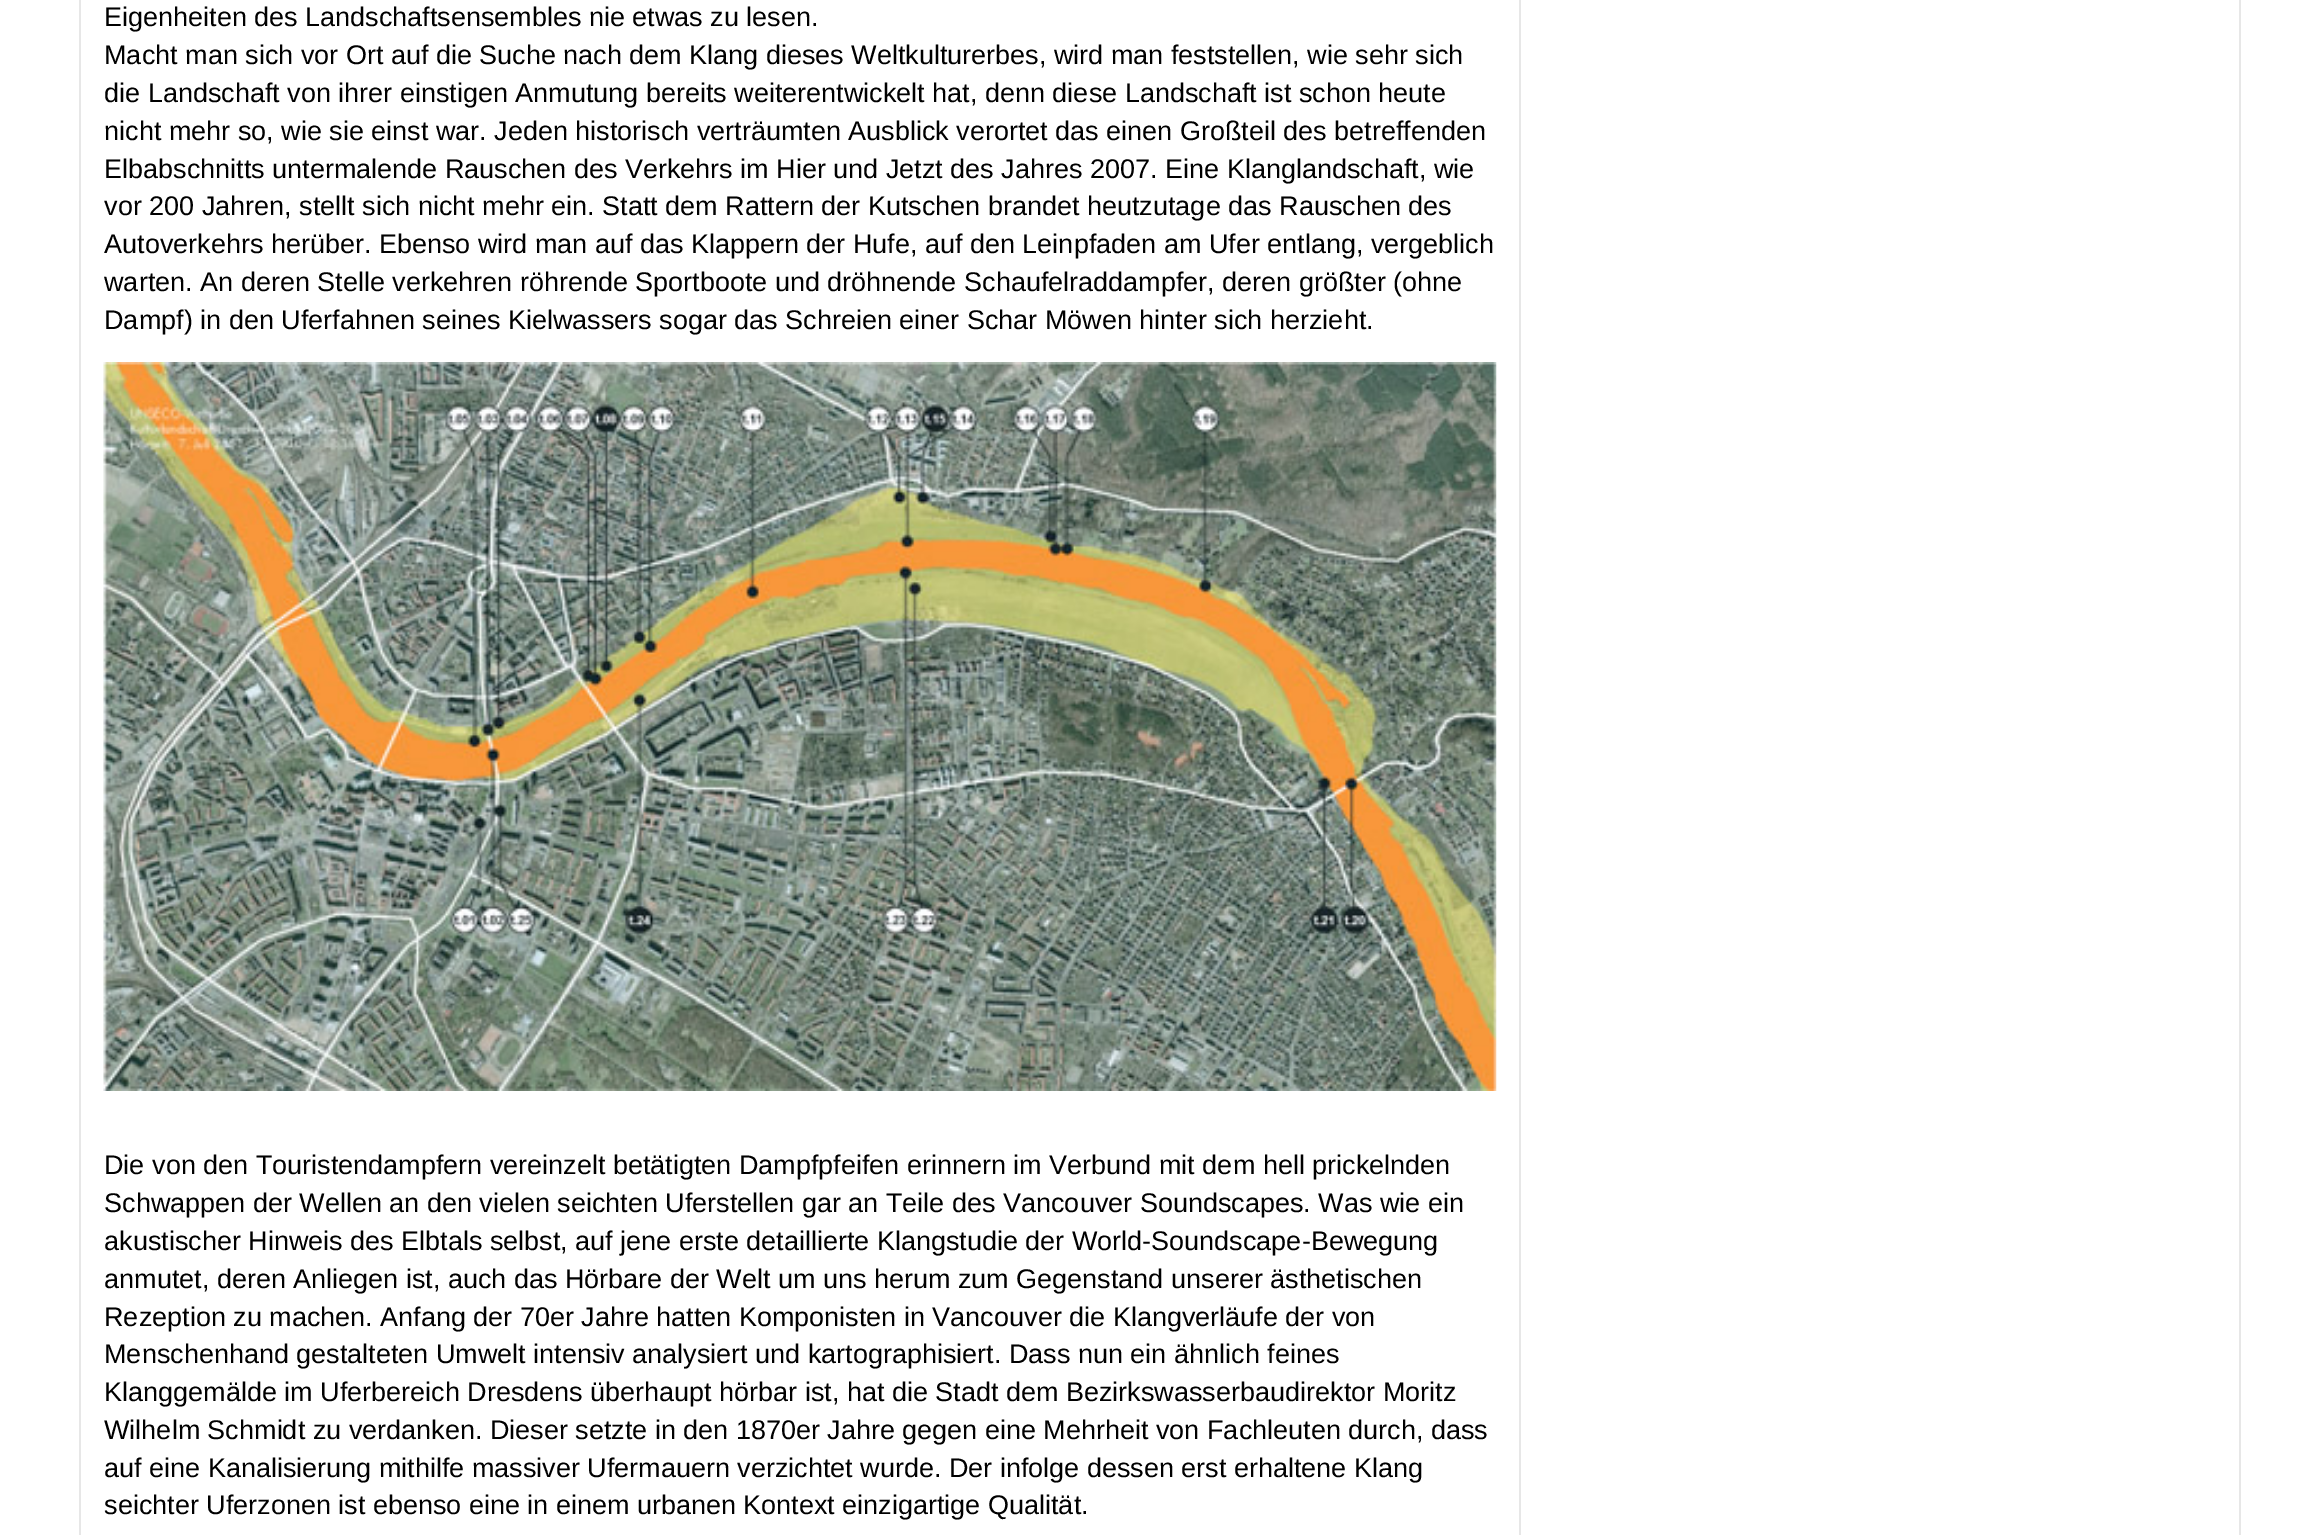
%!PS
<< /PageSize [2319 1535] >> setpagedevice
/rgb { dup -16 bitshift 255 div exch dup -8 bitshift 255 and 255 div exch 255 and 255 div setrgbcolor } def
/font { [ exch dup neg 0 0 3 -1 roll 0 0 ] selectfont } def
/text { moveto show } def
/picture { 5 dict begin { /h /w /y /x /name } { exch def } forall
  gsave x y translate w h scale
  w h 8 [w 0 0 h 0 0] name (r) file false 3 colorimage grestore end } def
0 1535 translate 1 -1 scale
4 setmiterlimit
/s1 { /LiberationSans-Regular 27 font 16#000000 rgb } def
16#FFFFFF rgb
0 0 2319 1535 rectfill
16#E7E7E7 rgb
2239 0 2 1535 rectfill
79 0 2 1535 rectfill
1519 0 2 1535 rectfill
s1
(Eigenheiten des Landschaftsensembles nie etwas zu lesen.) 104 26 text
(Macht man sich vor Ort auf die Suche nach dem Klang dieses Weltkulturerbes, wird man feststellen, wie sehr sich) 104 64 text
(die Landschaft von ihrer einstigen Anmutung bereits weiterentwickelt hat, denn diese Landschaft ist schon heute) 104 102 text
(nicht mehr so, wie sie einst war. Jeden historisch verträumten Ausblick verortet das einen Großteil des betreffenden) 104 140 text
(Elbabschnitts untermalende Rauschen des Verkehrs im Hier und Jetzt des Jahres 2007. Eine Klanglandschaft, wie) 104 178 text
(vor 200 Jahren, stellt sich nicht mehr ein. Statt dem Rattern der Kutschen brandet heutzutage das Rauschen des) 104 215 text
(Autoverkehrs herüber. Ebenso wird man auf das Klappern der Hufe, auf den Leinpfaden am Ufer entlang, vergeblich) 104 253 text
(warten. An deren Stelle verkehren röhrende Sportboote und dröhnende Schaufelraddampfer, deren größter \(ohne) 104 291 text
(Dampf\) in den Uferfahnen seines Kielwassers sogar das Schreien einer Schar Möwen hinter sich herzieht.) 104 329 text
(pic1.raw) 103 362 1394 729 picture
(Die von den Touristendampfern vereinzelt betätigten Dampfpfeifen erinnern im Verbund mit dem hell prickelnden) 104 1174 text
(Schwappen der Wellen an den vielen seichten Uferstellen gar an Teile des Vancouver Soundscapes. Was wie ein) 104 1212 text
(akustischer Hinweis des Elbtals selbst, auf jene erste detaillierte Klangstudie der World-Soundscape-Bewegung) 104 1250 text
(anmutet, deren Anliegen ist, auch das Hörbare der Welt um uns herum zum Gegenstand unserer ästhetischen) 104 1288 text
(Rezeption zu machen. Anfang der 70er Jahre hatten Komponisten in Vancouver die Klangverläufe der von) 104 1326 text
(Menschenhand gestalteten Umwelt intensiv analysiert und kartographisiert. Dass nun ein ähnlich feines) 104 1363 text
(Klanggemälde im Uferbereich Dresdens überhaupt hörbar ist, hat die Stadt dem Bezirkswasserbaudirektor Moritz) 104 1401 text
(Wilhelm Schmidt zu verdanken. Dieser setzte in den 1870er Jahre gegen eine Mehrheit von Fachleuten durch, dass) 104 1439 text
(auf eine Kanalisierung mithilfe massiver Ufermauern verzichtet wurde. Der infolge dessen erst erhaltene Klang) 104 1477 text
(seichter Uferzonen ist ebenso eine in einem urbanen Kontext einzigartige Qualität.) 104 1514 text
showpage
